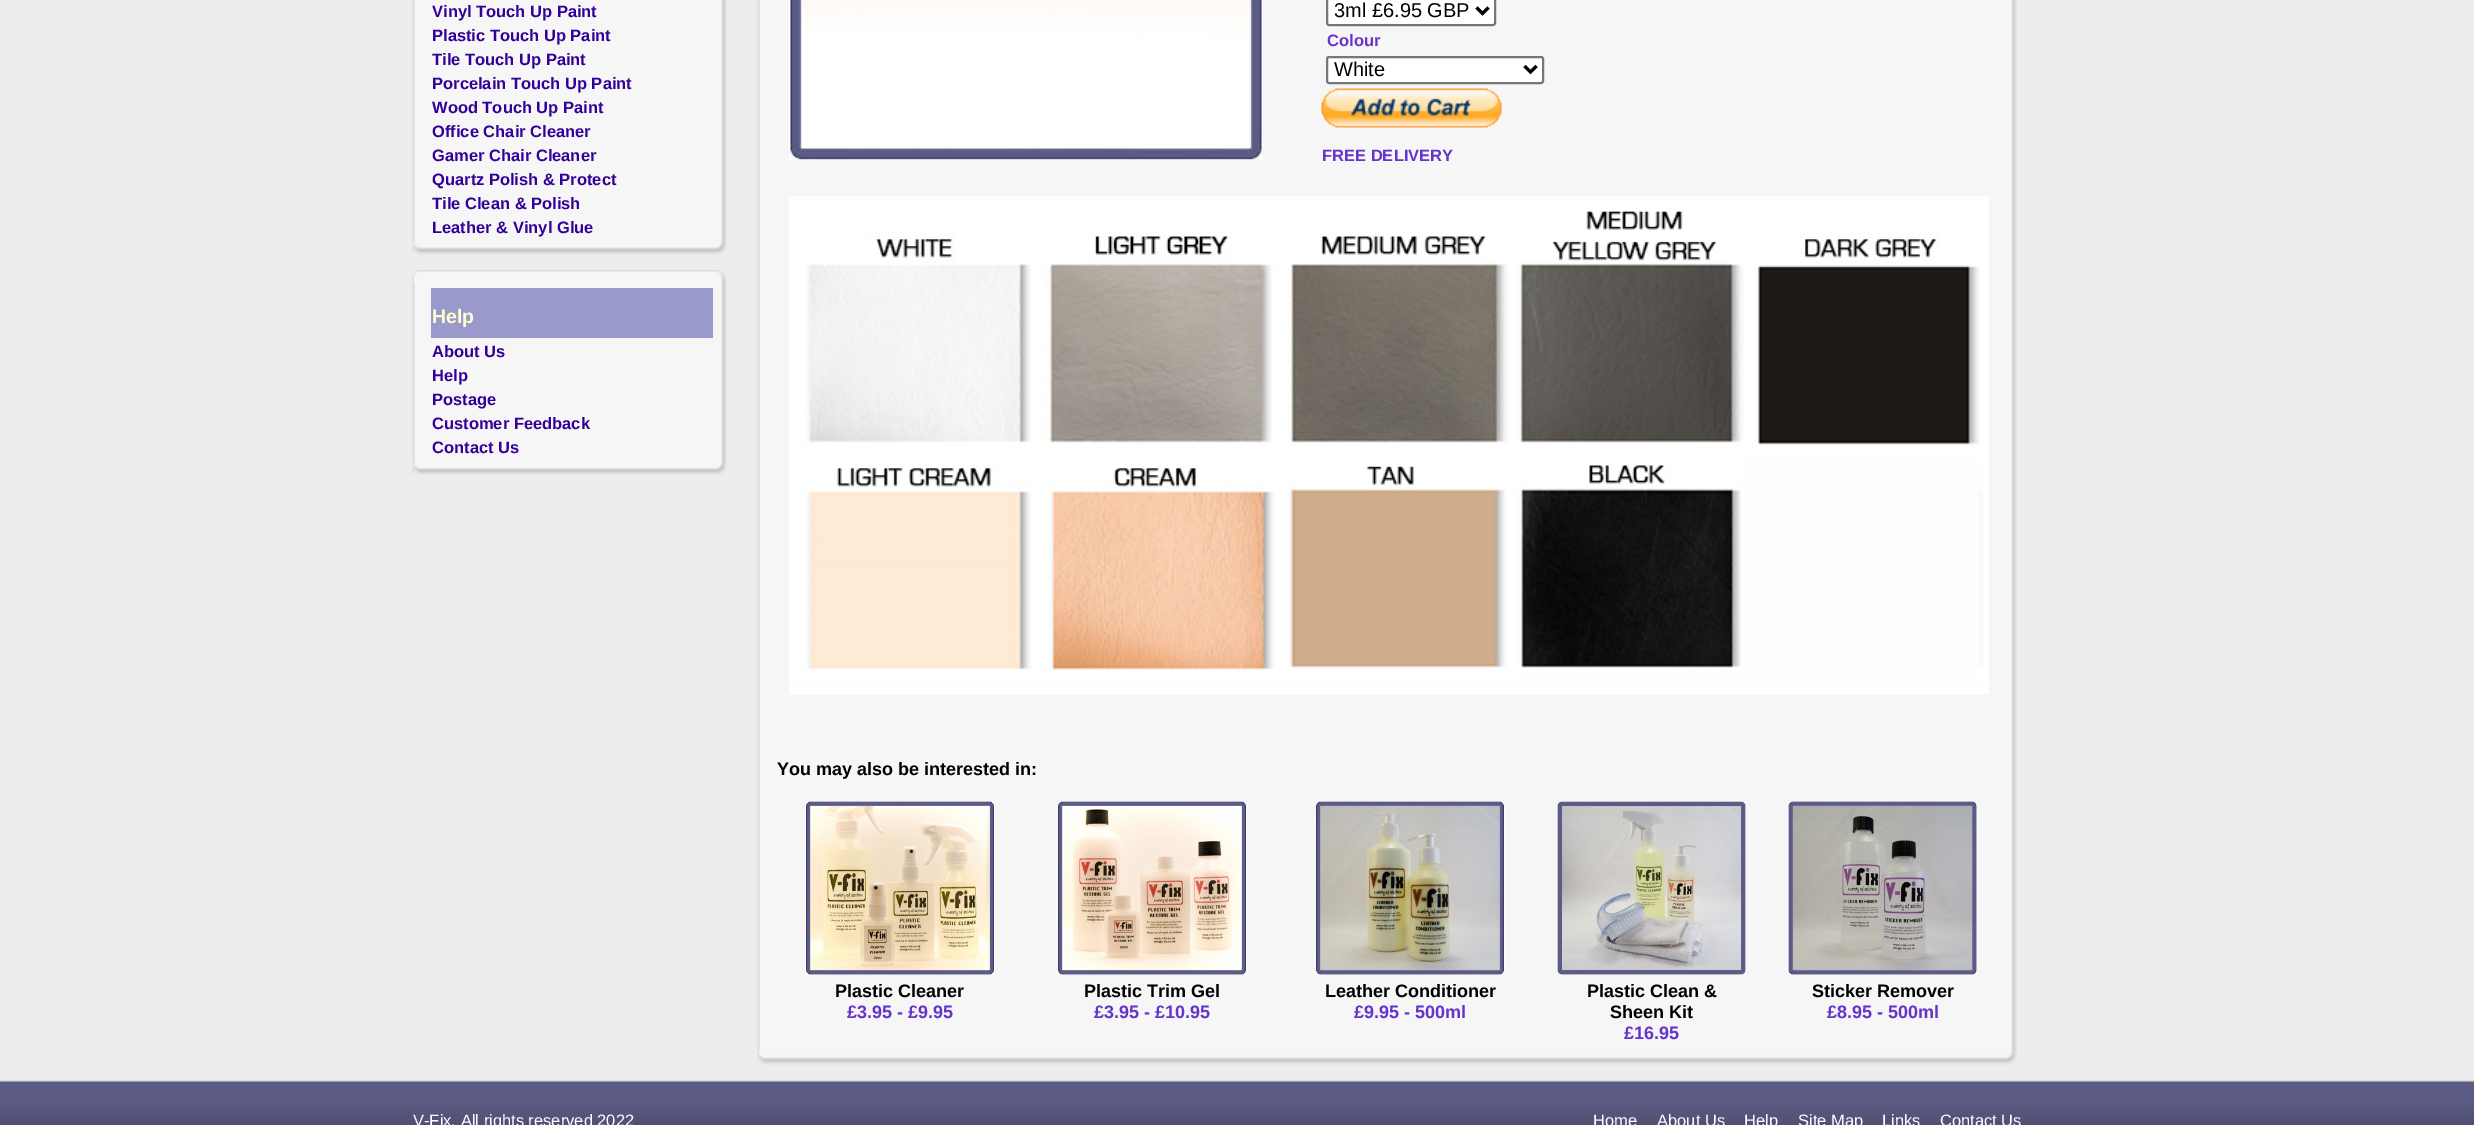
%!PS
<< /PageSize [2474 1125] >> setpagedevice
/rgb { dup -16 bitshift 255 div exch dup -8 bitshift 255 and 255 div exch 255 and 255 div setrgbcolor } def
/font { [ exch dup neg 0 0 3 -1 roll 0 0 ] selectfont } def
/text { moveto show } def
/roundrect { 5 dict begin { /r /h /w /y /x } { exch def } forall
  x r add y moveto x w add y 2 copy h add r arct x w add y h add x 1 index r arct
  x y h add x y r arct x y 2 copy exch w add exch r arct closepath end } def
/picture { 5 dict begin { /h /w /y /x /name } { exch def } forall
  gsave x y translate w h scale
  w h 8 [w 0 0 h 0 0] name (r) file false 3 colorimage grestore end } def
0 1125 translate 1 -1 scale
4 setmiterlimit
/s1 { /LiberationSans-Bold 16.5 font 16#330099 rgb } def
/s2 { /LiberationSans-Bold 19.5 font 16#FFFFCC rgb } def
/s3 { /LiberationSans-Regular 20 font 16#000000 rgb } def
/s4 { /LiberationSans-Bold 16.5 font 16#6633CC rgb } def
/s5 { /LiberationSans-Bold 18 font 16#000000 rgb } def
/s6 { /LiberationSans-Bold 18 font 16#6633CC rgb } def
/s7 { /LiberationSans-Regular 16.5 font 16#FFFFFF rgb } def
16#EDEDED rgb
0 0 2474 1125 rectfill
16#DBDBDB rgb
0 1080 2474 2 rectfill
16#F6F6F6 rgb
415 0 313 255 rectfill
(pic1.raw) 721 0 7 255 picture
16#E1E1E1 rgb
412 0 3 255 rectfill
(pic2.raw) 412 241 315 14 picture
(pic3.raw) 412 241 8 14 picture
s1
(Vinyl Touch Up Paint) 432 17 text
(Plastic Touch Up Paint) 432 41 text
(Tile Touch Up Paint) 432 65 text
(Porcelain Touch Up Paint) 432 89 text
(Wood Touch Up Paint) 432 113 text
(Office Chair Cleaner) 432 137 text
(Gamer Chair Cleaner) 432 161 text
(Quartz Polish & Protect) 432 185 text
(Tile Clean & Polish) 432 209 text
(Leather & Vinyl Glue) 432 233 text
16#F6F6F6 rgb
415 270 313 206 rectfill
(pic4.raw) 721 270 7 206 picture
16#E1E1E1 rgb
412 270 3 206 rectfill
(pic5.raw) 412 270 315 15 picture
(pic6.raw) 412 270 6 15 picture
(pic7.raw) 412 462 315 14 picture
(pic8.raw) 412 462 8 14 picture
16#9999CC rgb
431 288 282 50 rectfill
s2
(Help) 432 323 text
s1
(About Us) 432 357 text
(Help) 432 381 text
(Postage) 432 405 text
(Customer Feedback) 432 429 text
(Contact Us) 432 453 text
16#F6F6F6 rgb
760 0 1258 1065 rectfill
(pic9.raw) 2011 0 7 1065 picture
16#E1E1E1 rgb
757 0 3 1065 rectfill
(pic10.raw) 757 1051 1260 14 picture
(pic3.raw) 757 1051 8 14 picture
(pic11.raw) 789 0 474 161 picture
16#FFFFFF rgb
1327 -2 168 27 2 roundrect gsave fill grestore
16#767676 rgb
2 setlinewidth
stroke
16#000000 rgb
3 setlinewidth
1476.5 7.5 moveto 1482.5 13.5 lineto 1488.5 7.5 lineto stroke
s3
(3ml £6.95 GBP) 1334 17 text
s4
(Colour) 1327 46 text
16#FFFFFF rgb
1327 57 216 26 2 roundrect gsave fill grestore
16#767676 rgb
2 setlinewidth
stroke
16#000000 rgb
3 setlinewidth
1524.5 66 moveto 1530.5 72 lineto 1536.5 66 lineto stroke
s3
(White) 1334 76 text
(pic12.raw) 1321 88 181 40 picture
s4
(FREE DELIVERY) 1322 161 text
(pic13.raw) 789 196 1200 499 picture
s5
(You may also be interested in:) 777 775 text
(pic14.raw) 805 801 190 174 picture
(pic15.raw) 1057 801 190 174 picture
(pic16.raw) 1315 801 190 174 picture
(pic17.raw) 1557 801 189 174 picture
(pic18.raw) 1788 801 189 174 picture
(Plastic Cleaner) 835 997 text
s6
(£3.95 - £9.95) 847 1018 text
s5
(Plastic Trim Gel) 1084 997 text
s6
(£3.95 - £10.95) 1094 1018 text
s5
(Leather Conditioner) 1325 997 text
s6
(£9.95 - 500ml) 1354 1018 text
s5
(Plastic Clean &) 1587 997 text
(Sheen Kit) 1610 1018 text
s6
(£16.95) 1624 1039 text
s5
(Sticker Remover) 1812 997 text
s6
(£8.95 - 500ml) 1827 1018 text
(pic19.raw) 0 1081 2474 44 picture
s7
(V-Fix. All rights reserved 2022) 413 1126 text
(Home) 1593 1126 text
(About Us) 1657 1126 text
(Help) 1744 1126 text
(Site Map) 1798 1126 text
(Links) 1882 1126 text
(Contact Us) 1940 1126 text
showpage
